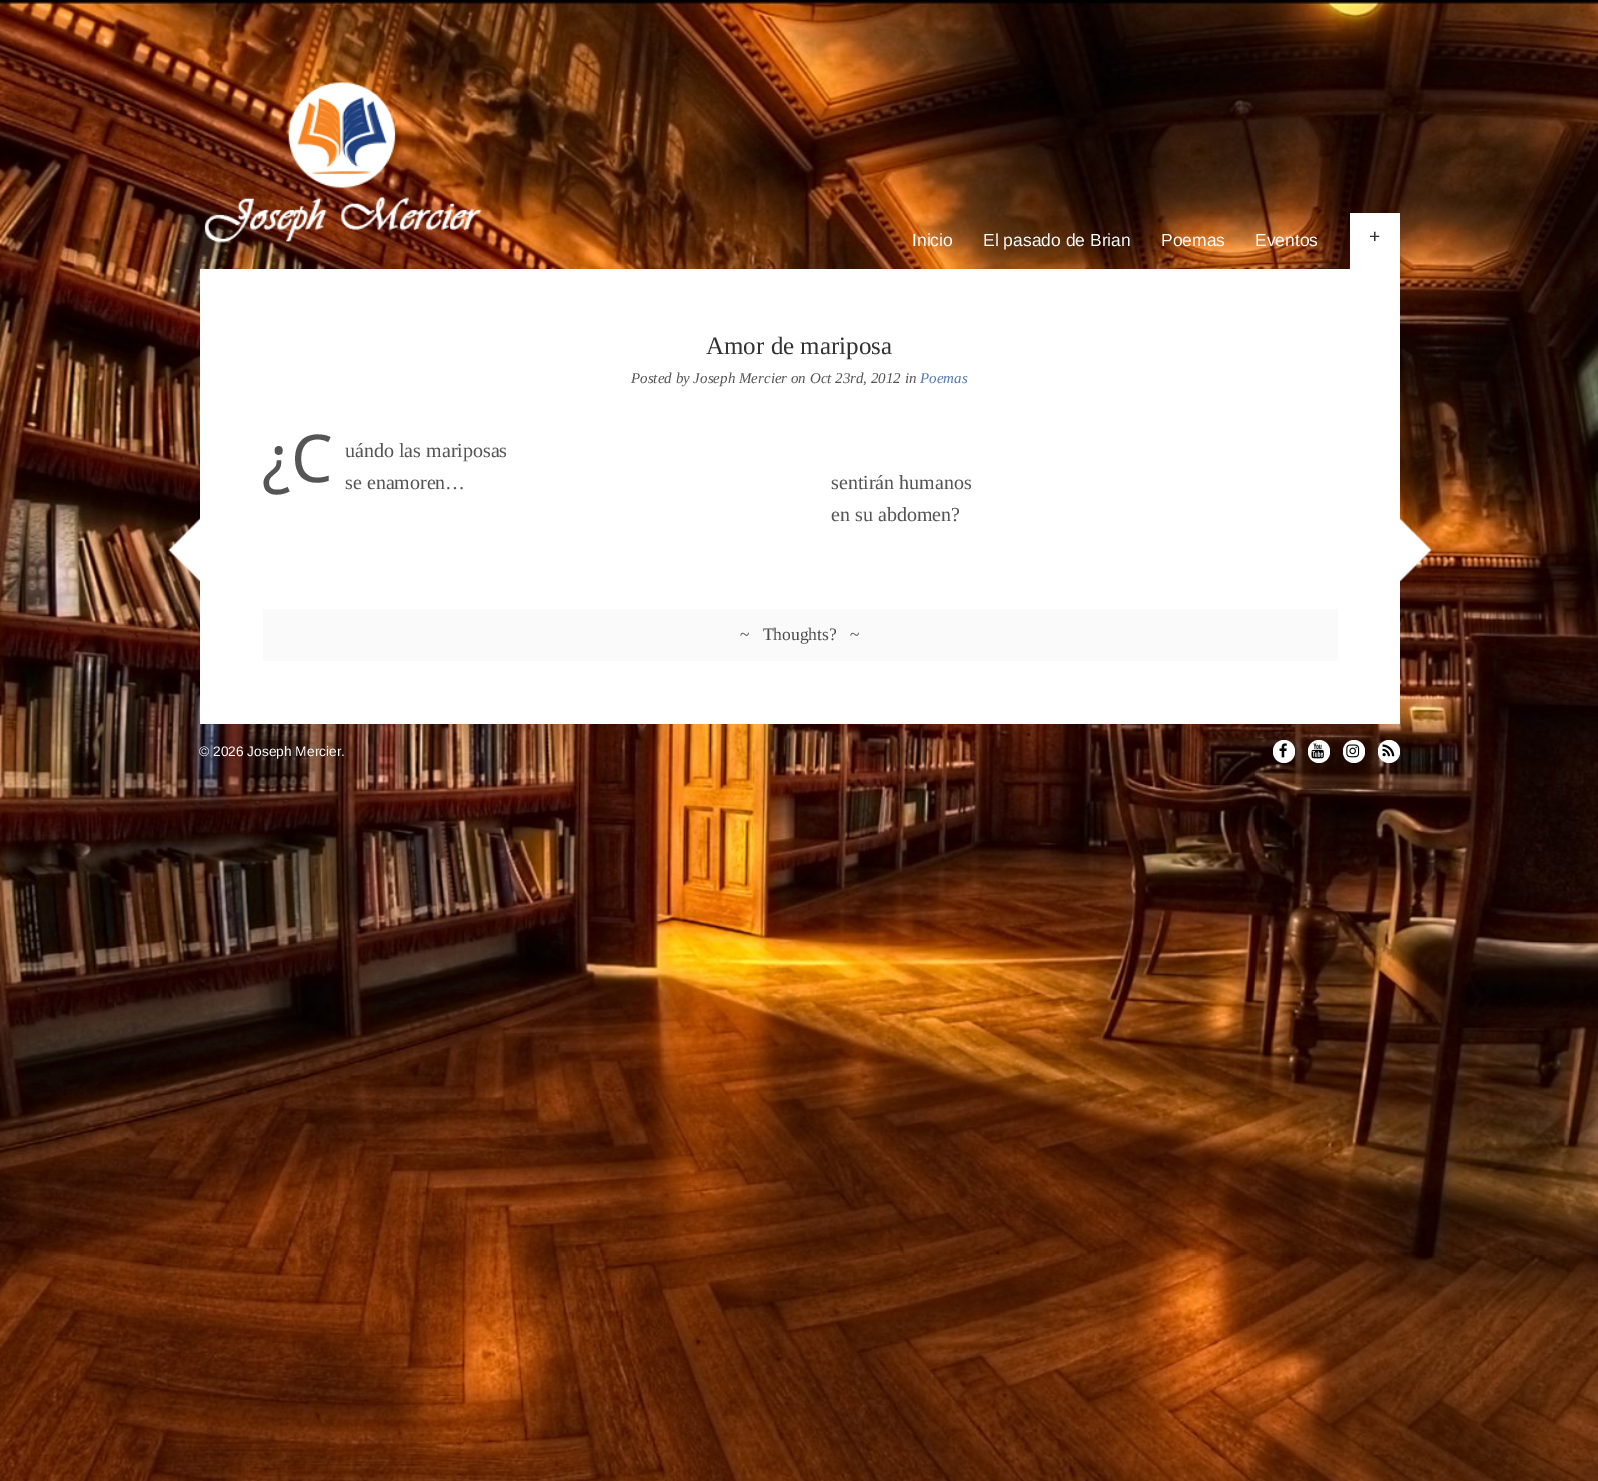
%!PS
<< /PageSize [1598 1481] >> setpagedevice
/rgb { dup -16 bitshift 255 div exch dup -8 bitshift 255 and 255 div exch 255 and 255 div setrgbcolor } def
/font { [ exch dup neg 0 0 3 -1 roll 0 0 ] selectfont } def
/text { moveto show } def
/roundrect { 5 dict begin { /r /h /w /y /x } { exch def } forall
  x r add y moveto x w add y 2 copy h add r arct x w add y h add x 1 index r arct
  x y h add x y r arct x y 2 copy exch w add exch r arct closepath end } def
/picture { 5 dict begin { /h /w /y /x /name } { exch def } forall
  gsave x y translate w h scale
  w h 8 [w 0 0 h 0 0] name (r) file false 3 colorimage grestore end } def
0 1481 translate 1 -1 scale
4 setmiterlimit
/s1 { /LiberationSans-Regular 17.5 font 16#FFFFFF rgb } def
/s2 { /LiberationSerif-Bold 20 font 16#333333 rgb } def
/s3 { /LiberationSerif-Regular 25 font 16#333333 rgb } def
/s4 { /LiberationSerif-Italic 15 font 16#555555 rgb } def
/s5 { /LiberationSerif-Italic 15 font 16#5378B3 rgb } def
/s6 { /NotoSans-Regular 66 font 16#555555 rgb } def
/s7 { /LiberationSerif-Regular 20 font 16#555555 rgb } def
/s8 { /LiberationSerif-Regular 17.5 font 16#4C4C4C rgb } def
/s9 { /LiberationSans-Regular 13.75 font 16#FFFFFF rgb } def
16#FFFFFF rgb
0 0 1598 1481 rectfill
(pic1.raw) 0 0 1598 1481 picture
(pic2.raw) 204 82 278 161 picture
s1
(Inicio) 912 246 text
(El pasado de Brian) 983 246 text
(Poemas) 1161 246 text
(Eventos) 1255 246 text
1350 213 50 56 rectfill
s2
(+) 1369 243 text
16#FFFFFF rgb
200 269 1200 455 rectfill
(pic3.raw) 168 518 32 64 picture
s3
(Amor de mariposa) 706 354 text
s4
(Posted by Joseph Mercier on Oct 23rd, 2012 in) 631 383 text
s5
(Poemas) 920 383 text
s6
(¿C) 262 482 text
s7
(uándo las mariposas) 345 457 text
(se enamoren…) 345 489 text
(sentirán humanos) 831 489 text
(en su abdomen?) 831 521 text
16#FAFAFA rgb
263 609 1075 52 rectfill
s8
(~   Thoughts?   ~) 740 640 text
(pic4.raw) 1400 518 32 64 picture
s9
(© 2026 Joseph Mercier.) 199 756 text
1273 740 22 23 11 roundrect fill
(pic5.raw) 1279 743 8 15 picture
1308 740 22 23 11 roundrect fill
(pic6.raw) 1311 743 13 16 picture
1343 740 22 23 11 roundrect fill
(pic7.raw) 1346 744 14 14 picture
1378 740 22 23 11 roundrect fill
(pic8.raw) 1382 744 13 13 picture
showpage
